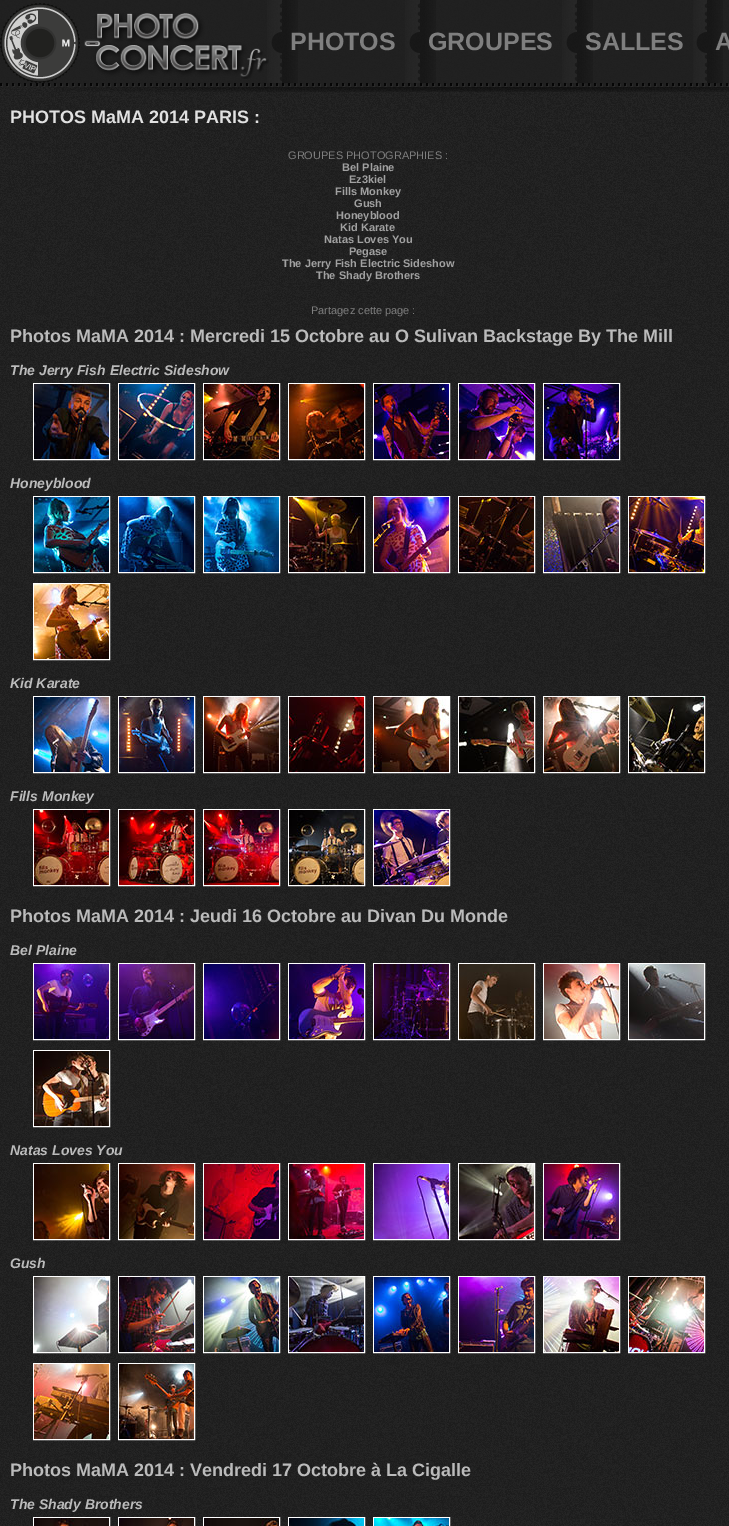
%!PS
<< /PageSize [729 1526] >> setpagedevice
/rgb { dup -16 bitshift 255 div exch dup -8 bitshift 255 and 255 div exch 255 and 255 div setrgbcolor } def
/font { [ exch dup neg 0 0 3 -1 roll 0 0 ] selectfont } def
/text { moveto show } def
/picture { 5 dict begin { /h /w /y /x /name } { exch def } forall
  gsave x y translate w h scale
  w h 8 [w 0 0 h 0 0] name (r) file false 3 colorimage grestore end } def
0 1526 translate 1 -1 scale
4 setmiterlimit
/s1 { /LiberationSans-Bold 25 font 16#7F7F7F rgb } def
/s2 { /LiberationSans-Bold 18 font 16#E1E1E1 rgb } def
/s3 { /LiberationSans-Regular 11 font 16#7F7F7F rgb } def
/s4 { /LiberationSans-Bold 11 font 16#A1A1A1 rgb } def
/s5 { /LiberationSans-Bold 18 font 16#BBBBBB rgb } def
/s6 { /LiberationSans-BoldItalic 14 font 16#BBBBBB rgb } def
16#FFFFFF rgb
0 0 729 1526 rectfill
(pic1.raw) 0 0 729 87 picture
(pic2.raw) 0 3 80 80 picture
(pic4.raw) 267 0 31 83 picture
(pic3.raw) 84 13 185 66 picture
s1
(PHOTOS) 290 50 text
(pic4.raw) 405 0 31 83 picture
(GROUPES) 428 50 text
(pic4.raw) 562 0 31 83 picture
(SALLES) 585 50 text
(pic5.raw) 693 0 30 83 picture
(A) 715 50 text
(pic6.raw) 0 87 729 1439 picture
(pic7.raw) 54 87 675 5 picture
s2
(PHOTOS MaMA 2014 PARIS :) 10 123 text
s3
(GROUPES PHOTOGRAPHIES :) 288 159 text
s4
(Bel Plaine) 342 171 text
(Ez3kiel) 349 183 text
(Fills Monkey) 335 195 text
(Gush) 354 207 text
(Honeyblood) 336 219 text
(Kid Karate) 340 231 text
(Natas Loves You) 324 243 text
(Pegase) 349 255 text
(The Jerry Fish Electric Sideshow) 282 267 text
(The Shady Brothers) 316 279 text
s3
(Partagez cette page :) 311 314 text
s5
(Photos MaMA 2014 : Mercredi 15 Octobre au O Sulivan Backstage By The Mill) 10 342 text
s6
(The Jerry Fish Electric Sideshow) 10 375 text
16#FFFFFF rgb
33.5 383.5 76 76 rectstroke
(pic8.raw) 34 384 75 75 picture
118.5 383.5 76 76 rectstroke
(pic9.raw) 119 384 75 75 picture
203.5 383.5 76 76 rectstroke
(pic10.raw) 204 384 75 75 picture
288.5 383.5 76 76 rectstroke
(pic11.raw) 289 384 75 75 picture
373.5 383.5 76 76 rectstroke
(pic12.raw) 374 384 75 75 picture
458.5 383.5 76 76 rectstroke
(pic13.raw) 459 384 75 75 picture
543.5 383.5 76 76 rectstroke
(pic14.raw) 544 384 75 75 picture
s6
(Honeyblood) 10 488 text
16#FFFFFF rgb
33.5 496.5 76 76 rectstroke
(pic15.raw) 34 497 75 75 picture
118.5 496.5 76 76 rectstroke
(pic16.raw) 119 497 75 75 picture
203.5 496.5 76 76 rectstroke
(pic17.raw) 204 497 75 75 picture
288.5 496.5 76 76 rectstroke
(pic18.raw) 289 497 75 75 picture
373.5 496.5 76 76 rectstroke
(pic19.raw) 374 497 75 75 picture
458.5 496.5 76 76 rectstroke
(pic20.raw) 459 497 75 75 picture
543.5 496.5 76 76 rectstroke
(pic21.raw) 544 497 75 75 picture
628.5 496.5 76 76 rectstroke
(pic22.raw) 629 497 75 75 picture
33.5 583.5 76 76 rectstroke
(pic23.raw) 34 584 75 75 picture
s6
(Kid Karate) 10 688 text
16#FFFFFF rgb
33.5 696.5 76 76 rectstroke
(pic24.raw) 34 697 75 75 picture
118.5 696.5 76 76 rectstroke
(pic25.raw) 119 697 75 75 picture
203.5 696.5 76 76 rectstroke
(pic26.raw) 204 697 75 75 picture
288.5 696.5 76 76 rectstroke
(pic27.raw) 289 697 75 75 picture
373.5 696.5 76 76 rectstroke
(pic28.raw) 374 697 75 75 picture
458.5 696.5 76 76 rectstroke
(pic29.raw) 459 697 75 75 picture
543.5 696.5 76 76 rectstroke
(pic30.raw) 544 697 75 75 picture
628.5 696.5 76 76 rectstroke
(pic31.raw) 629 697 75 75 picture
s6
(Fills Monkey) 10 801 text
16#FFFFFF rgb
33.5 809.5 76 76 rectstroke
(pic32.raw) 34 810 75 75 picture
118.5 809.5 76 76 rectstroke
(pic33.raw) 119 810 75 75 picture
203.5 809.5 76 76 rectstroke
(pic34.raw) 204 810 75 75 picture
288.5 809.5 76 76 rectstroke
(pic35.raw) 289 810 75 75 picture
373.5 809.5 76 76 rectstroke
(pic36.raw) 374 810 75 75 picture
s5
(Photos MaMA 2014 : Jeudi 16 Octobre au Divan Du Monde) 10 922 text
s6
(Bel Plaine) 10 955 text
16#FFFFFF rgb
33.5 963.5 76 76 rectstroke
(pic37.raw) 34 964 75 75 picture
118.5 963.5 76 76 rectstroke
(pic38.raw) 119 964 75 75 picture
203.5 963.5 76 76 rectstroke
(pic39.raw) 204 964 75 75 picture
288.5 963.5 76 76 rectstroke
(pic40.raw) 289 964 75 75 picture
373.5 963.5 76 76 rectstroke
(pic41.raw) 374 964 75 75 picture
458.5 963.5 76 76 rectstroke
(pic42.raw) 459 964 75 75 picture
543.5 963.5 76 76 rectstroke
(pic43.raw) 544 964 75 75 picture
628.5 963.5 76 76 rectstroke
(pic44.raw) 629 964 75 75 picture
33.5 1050.5 76 76 rectstroke
(pic45.raw) 34 1051 75 75 picture
s6
(Natas Loves You) 10 1155 text
16#FFFFFF rgb
33.5 1163.5 76 76 rectstroke
(pic46.raw) 34 1164 75 75 picture
118.5 1163.5 76 76 rectstroke
(pic47.raw) 119 1164 75 75 picture
203.5 1163.5 76 76 rectstroke
(pic48.raw) 204 1164 75 75 picture
288.5 1163.5 76 76 rectstroke
(pic49.raw) 289 1164 75 75 picture
373.5 1163.5 76 76 rectstroke
(pic50.raw) 374 1164 75 75 picture
458.5 1163.5 76 76 rectstroke
(pic51.raw) 459 1164 75 75 picture
543.5 1163.5 76 76 rectstroke
(pic52.raw) 544 1164 75 75 picture
s6
(Gush) 10 1268 text
16#FFFFFF rgb
33.5 1276.5 76 76 rectstroke
(pic53.raw) 34 1277 75 75 picture
118.5 1276.5 76 76 rectstroke
(pic54.raw) 119 1277 75 75 picture
203.5 1276.5 76 76 rectstroke
(pic55.raw) 204 1277 75 75 picture
288.5 1276.5 76 76 rectstroke
(pic56.raw) 289 1277 75 75 picture
373.5 1276.5 76 76 rectstroke
(pic57.raw) 374 1277 75 75 picture
458.5 1276.5 76 76 rectstroke
(pic58.raw) 459 1277 75 75 picture
543.5 1276.5 76 76 rectstroke
(pic59.raw) 544 1277 75 75 picture
628.5 1276.5 76 76 rectstroke
(pic60.raw) 629 1277 75 75 picture
33.5 1363.5 76 76 rectstroke
(pic61.raw) 34 1364 75 75 picture
118.5 1363.5 76 76 rectstroke
(pic62.raw) 119 1364 75 75 picture
s5
(Photos MaMA 2014 : Vendredi 17 Octobre à La Cigalle) 10 1476 text
s6
(The Shady Brothers) 10 1509 text
16#FFFFFF rgb
33.5 1517.5 76 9 rectstroke
(pic63.raw) 34 1518 75 8 picture
118.5 1517.5 76 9 rectstroke
(pic64.raw) 119 1518 75 8 picture
203.5 1517.5 76 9 rectstroke
(pic65.raw) 204 1518 75 8 picture
288.5 1517.5 76 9 rectstroke
(pic66.raw) 289 1518 75 8 picture
373.5 1517.5 76 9 rectstroke
(pic67.raw) 374 1518 75 8 picture
showpage
